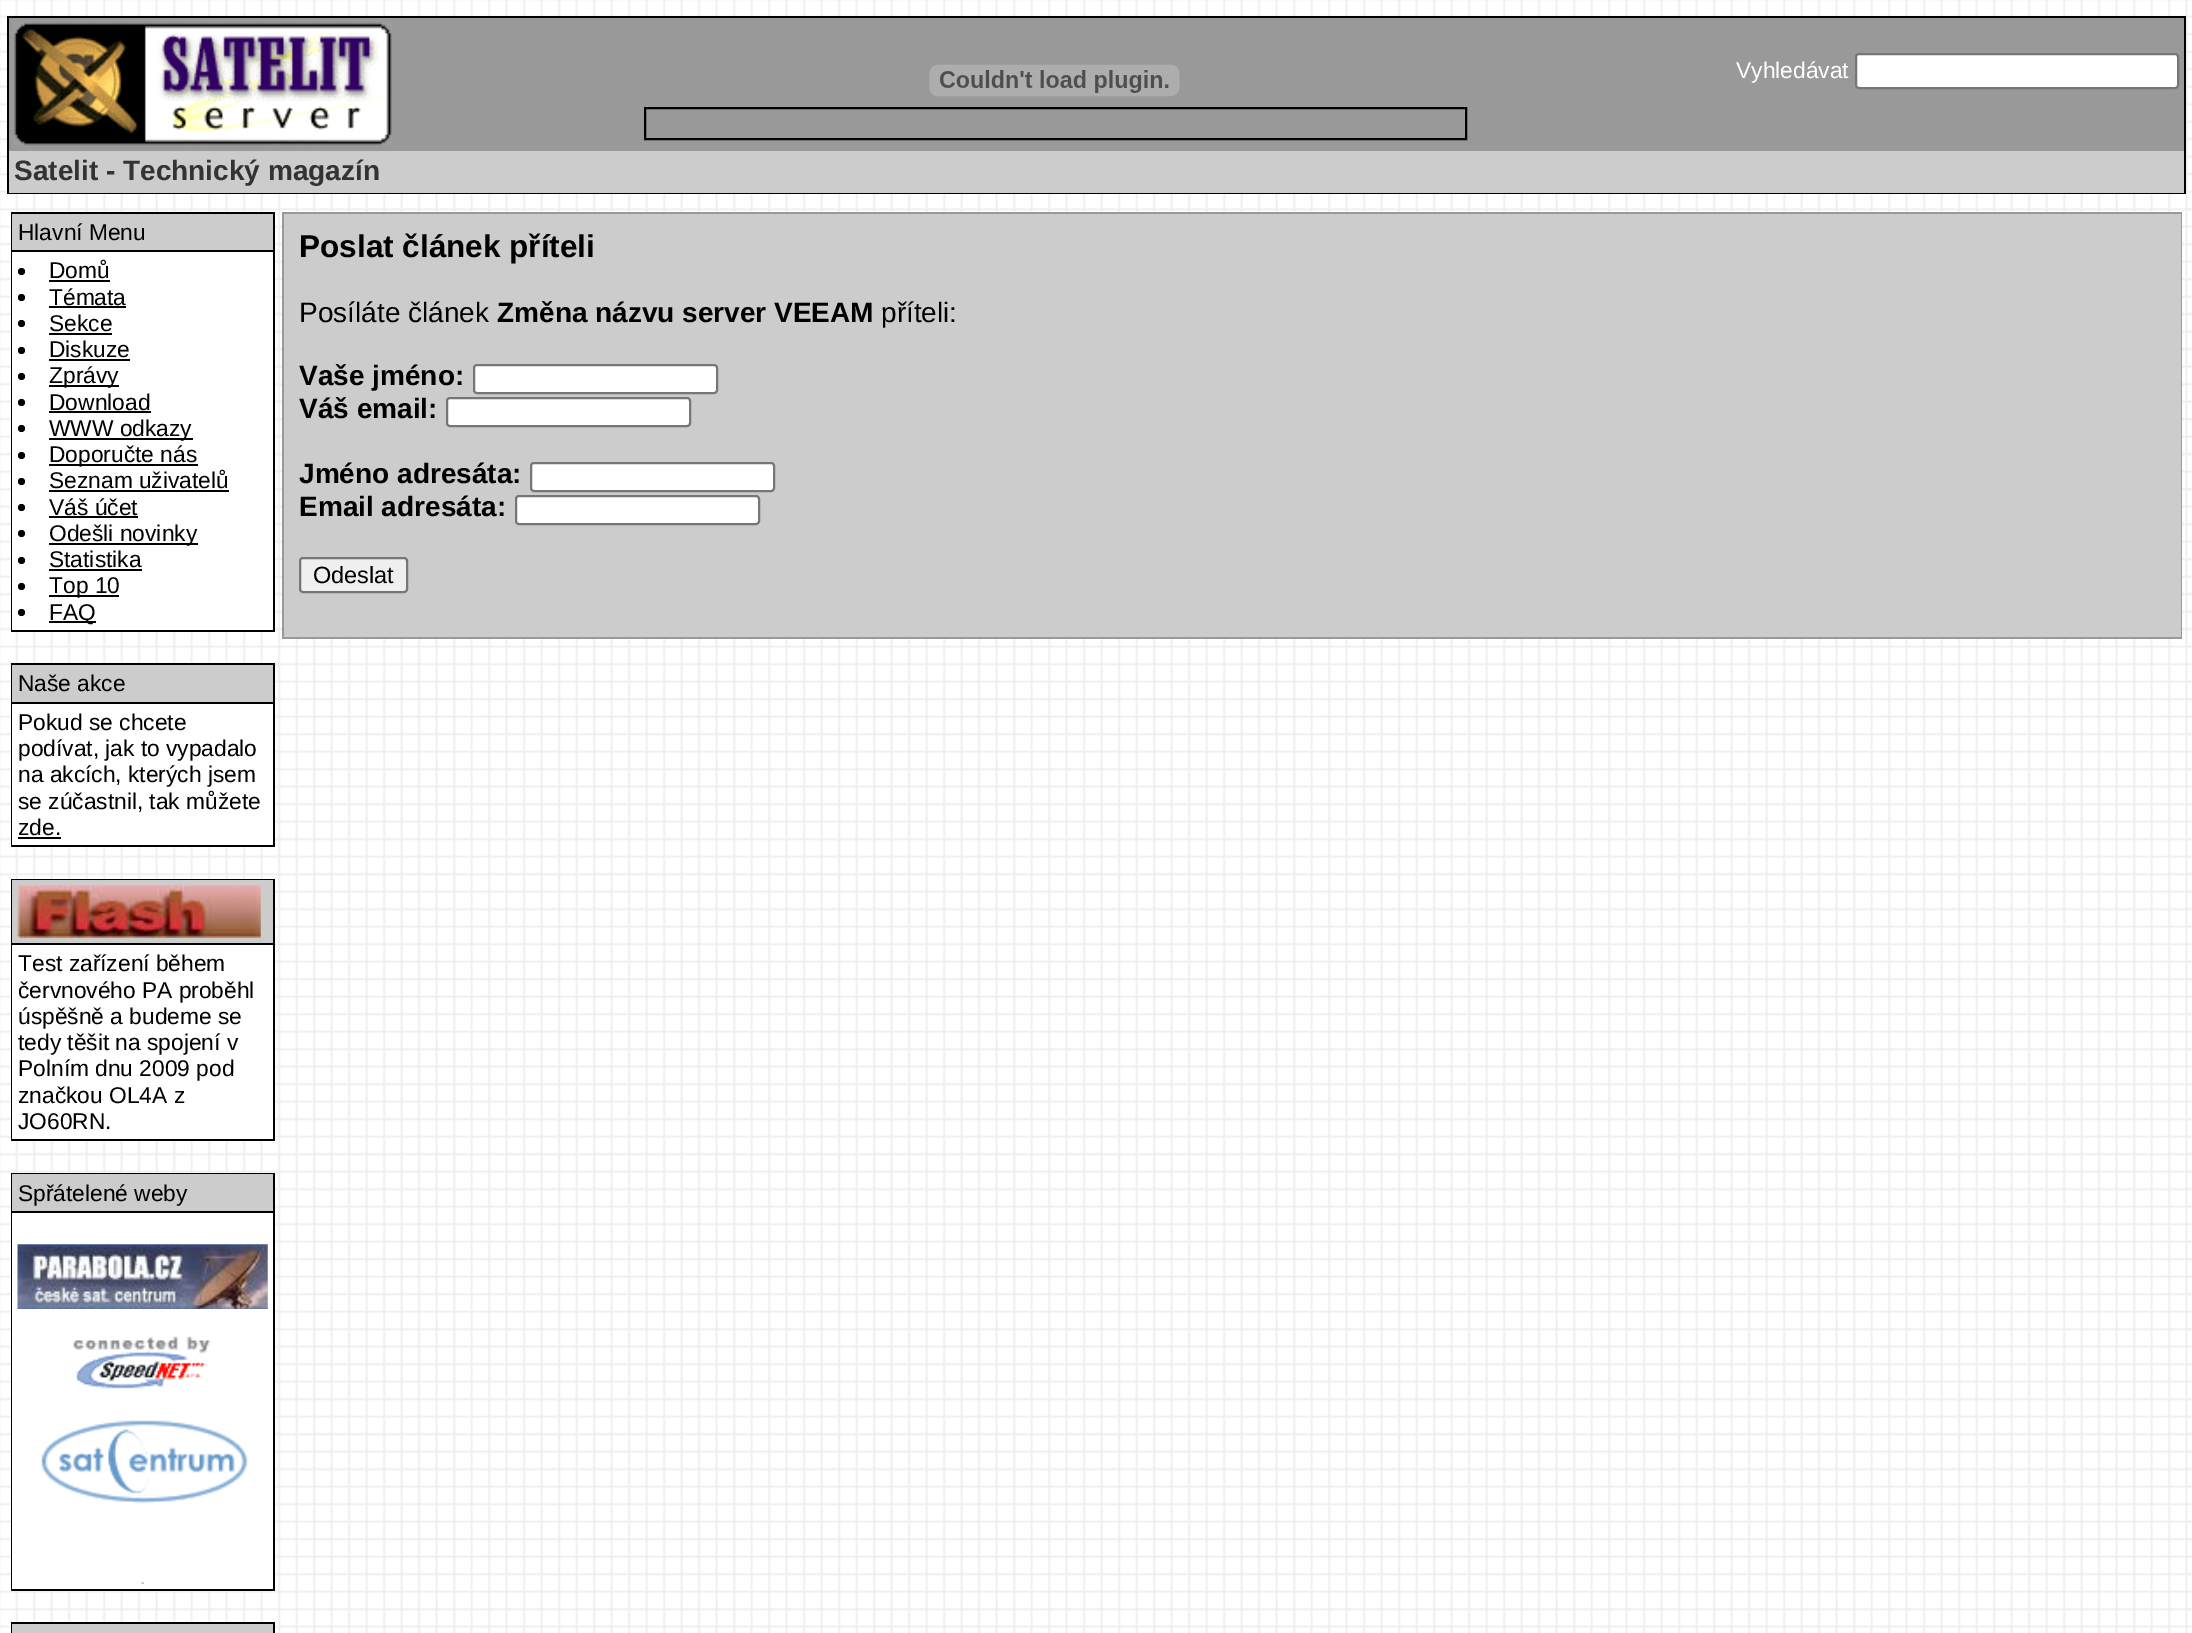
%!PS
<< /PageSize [2192 1633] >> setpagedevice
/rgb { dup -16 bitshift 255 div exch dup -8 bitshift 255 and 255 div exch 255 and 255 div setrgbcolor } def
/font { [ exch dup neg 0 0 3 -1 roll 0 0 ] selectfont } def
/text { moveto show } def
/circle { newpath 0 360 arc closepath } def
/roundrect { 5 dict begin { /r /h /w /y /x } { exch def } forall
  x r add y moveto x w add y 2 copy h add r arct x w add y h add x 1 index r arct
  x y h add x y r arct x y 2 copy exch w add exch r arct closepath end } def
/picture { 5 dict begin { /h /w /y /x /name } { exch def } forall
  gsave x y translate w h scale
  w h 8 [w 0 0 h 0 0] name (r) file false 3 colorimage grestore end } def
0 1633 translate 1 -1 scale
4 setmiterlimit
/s1 { /LiberationSans-Regular 22.75 font 16#FFFFFF rgb } def
/s2 { /LiberationSans-Bold 28 font 16#333333 rgb } def
/s3 { /LiberationSans-Regular 22.75 font 16#000000 rgb } def
/s4 { /LiberationSans-Bold 31.5 font 16#000000 rgb } def
/s5 { /LiberationSans-Regular 28 font 16#000000 rgb } def
/s6 { /LiberationSans-Bold 28 font 16#000000 rgb } def
/s7 { /LiberationSans-Regular 23.5 font 16#000000 rgb } def
16#FFFFFF rgb
0 0 2192 1633 rectfill
(pic1.raw) 0 0 2192 1633 picture
16#000000 rgb
7 16 2179 178 rectfill
16#999999 rgb
9 18 2175 133 rectfill
(pic2.raw) 14 22 378 124 picture
(pic3.raw) 929 64 251 33 picture
16#000000 rgb
2 setlinewidth
645 108 821 31 rectstroke
s1
(Vyhledávat) 1736 78 text
1856 54 322 34 3 roundrect gsave fill grestore
16#767676 rgb
stroke
16#CCCCCC rgb
9 151 2175 42 rectfill
s2
(Satelit - Technický magazín) 14 180 text
16#000000 rgb
11 212 264 420 rectfill
16#CCCCCC rgb
12 214 261 36 rectfill
s3
(Hlavní Menu) 18 240 text
16#FFFFFF rgb
12 252 261 378 rectfill
16#000000 rgb
21.5 271.5 3.5 circle fill
(Domů) 49 278 text
49 280 61 2 rectfill
21.5 297.5 3.5 circle fill
(Témata) 49 305 text
49 306 77 2 rectfill
21.5 323.5 3.5 circle fill
(Sekce) 49 331 text
49 333 63 2 rectfill
21.5 350.5 3.5 circle fill
(Diskuze) 49 357 text
49 359 81 2 rectfill
21.5 376.5 3.5 circle fill
49 385 70 2 rectfill
(Zprávy) 49 383 text
21.5 402.5 3.5 circle fill
(Download) 49 410 text
49 411 102 2 rectfill
21.5 428.5 3.5 circle fill
49 438 144 2 rectfill
(WWW odkazy) 49 436 text
21.5 455.5 3.5 circle fill
49 464 149 2 rectfill
(Doporučte nás) 49 462 text
21.5 481.5 3.5 circle fill
(Seznam uživatelů) 49 488 text
49 490 180 2 rectfill
21.5 507.5 3.5 circle fill
(Váš účet) 49 515 text
49 516 89 2 rectfill
21.5 533.5 3.5 circle fill
49 543 149 2 rectfill
(Odešli novinky) 49 541 text
21.5 560.5 3.5 circle fill
(Statistika) 49 567 text
49 569 93 2 rectfill
21.5 586.5 3.5 circle fill
49 595 70 2 rectfill
(Top 10) 49 593 text
21.5 612.5 3.5 circle fill
49 621 47 2 rectfill
(FAQ) 49 620 text
11 663 264 184 rectfill
16#CCCCCC rgb
12 665 261 37 rectfill
s3
(Naše akce) 18 691 text
16#FFFFFF rgb
12 704 261 141 rectfill
s3
(Pokud se chcete) 18 730 text
(podívat, jak to vypadalo) 18 756 text
(na akcích, kterých jsem) 18 782 text
(se zúčastnil, tak můžete) 18 809 text
(zde.) 18 835 text
18 837 43 2 rectfill
11 879 264 262 rectfill
16#CCCCCC rgb
12 880 261 63 rectfill
(pic4.raw) 17 885 244 53 picture
16#FFFFFF rgb
12 945 261 194 rectfill
s3
(Test zařízení během) 18 971 text
(červnového PA proběhl) 18 998 text
(úspěšně a budeme se) 18 1024 text
(tedy těšit na spojení v) 18 1050 text
(Polním dnu 2009 pod) 18 1076 text
(značkou OL4A z) 18 1103 text
(JO60RN.) 18 1129 text
11 1173 264 418 rectfill
16#CCCCCC rgb
12 1174 261 37 rectfill
s3
(Spřátelené weby) 18 1201 text
16#FFFFFF rgb
12 1213 261 376 rectfill
(pic5.raw) 17 1244 251 65 picture
(pic6.raw) 73 1336 138 53 picture
(pic7.raw) 41 1420 207 84 picture
(pic8.raw) 141 1582 3 2 picture
16#000000 rgb
11 1622 264 11 rectfill
16#CCCCCC rgb
12 1624 261 9 rectfill
16#999999 rgb
282 212 1900 427 rectfill
16#CCCCCC rgb
284 214 1897 423 rectfill
s4
(Poslat článek příteli) 299 257 text
s5
(Posíláte článek) 299 322 text
s6
(Změna názvu server VEEAM) 497 322 text
s5
(příteli:) 881 322 text
s6
(Vaše jméno:) 299 385 text
16#FFFFFF rgb
474 365 243 28 3 roundrect gsave fill grestore
16#767676 rgb
stroke
s6
(Váš email:) 299 418 text
16#FFFFFF rgb
447 398 243 28 3 roundrect gsave fill grestore
16#767676 rgb
stroke
s6
(Jméno adresáta:) 299 483 text
16#FFFFFF rgb
531 463 243 28 3 roundrect gsave fill grestore
16#767676 rgb
stroke
s6
(Email adresáta:) 299 516 text
16#FFFFFF rgb
516 496 243 28 3 roundrect gsave fill grestore
16#767676 rgb
stroke
16#EFEFEF rgb
300 558 107 34 3 roundrect gsave fill grestore
16#767676 rgb
stroke
s7
(Odeslat) 313 583 text
showpage
